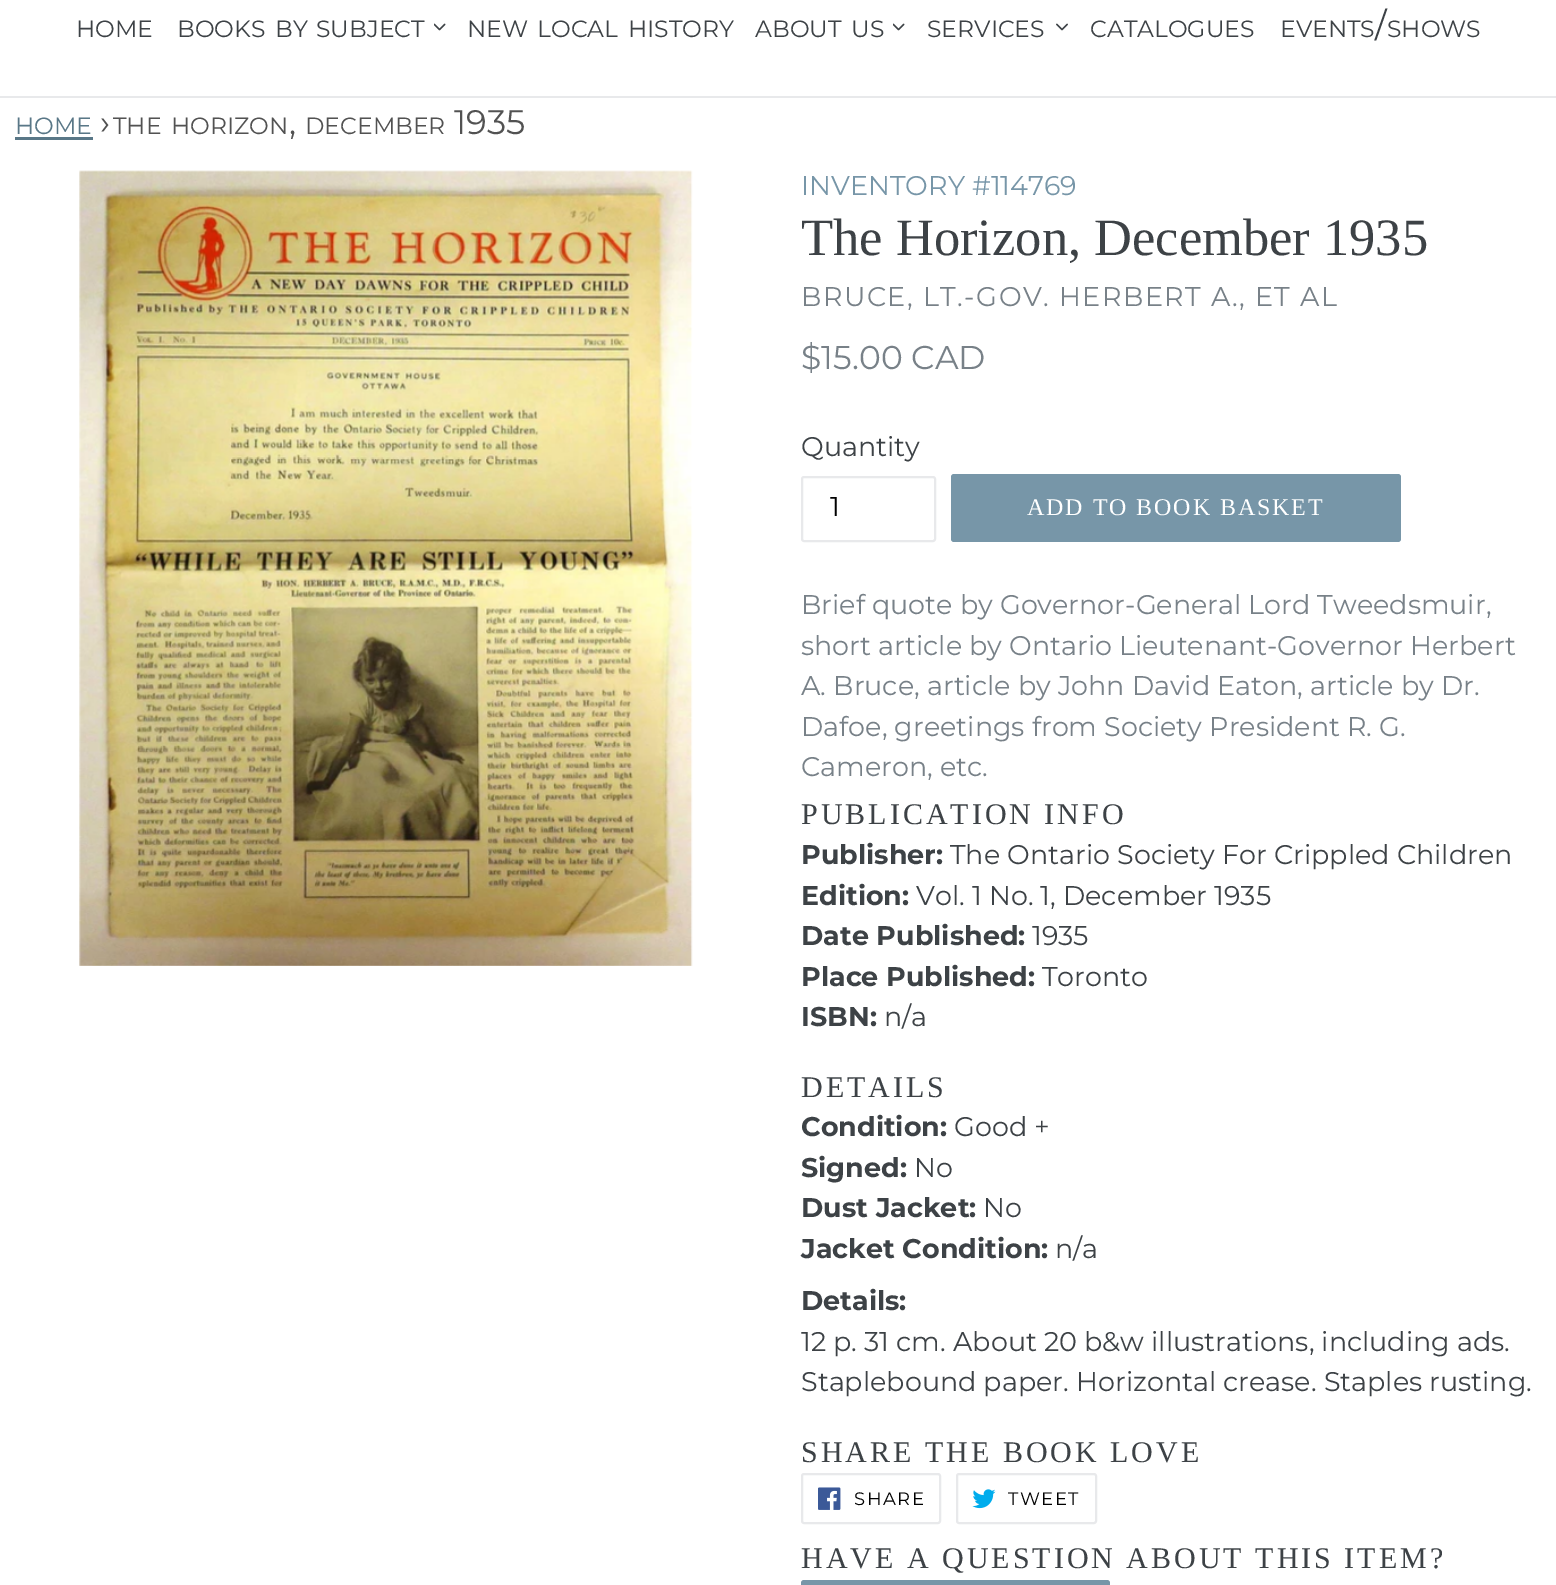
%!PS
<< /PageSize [1556 1585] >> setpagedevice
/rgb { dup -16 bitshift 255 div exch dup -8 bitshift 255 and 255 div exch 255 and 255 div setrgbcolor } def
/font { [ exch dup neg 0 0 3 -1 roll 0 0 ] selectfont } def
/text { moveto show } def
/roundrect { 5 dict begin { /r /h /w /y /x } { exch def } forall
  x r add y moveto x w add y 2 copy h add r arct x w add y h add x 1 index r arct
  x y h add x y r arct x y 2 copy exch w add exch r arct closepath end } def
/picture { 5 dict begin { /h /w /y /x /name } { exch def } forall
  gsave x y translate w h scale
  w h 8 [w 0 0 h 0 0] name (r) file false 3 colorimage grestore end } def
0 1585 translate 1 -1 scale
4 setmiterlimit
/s1 { /Montserrat-Regular 23.5 font 16#3D4246 rgb } def
/s2 { /Montserrat-Regular 34 font 16#3D4246 rgb } def
/s3 { /Montserrat-Regular 23.5 font 16#597787 rgb } def
/s4 { /Montserrat-Regular 34 font 16#525252 rgb } def
/s5 { /Montserrat-Regular 23.5 font 16#525252 rgb } def
/s6 { /Montserrat-Regular 27 font 16#7796A8 rgb } def
/s7 { /LiberationSerif-Regular 52.5 font 16#3D4246 rgb } def
/s8 { /Montserrat-Regular 33 font 16#788188 rgb } def
/s9 { /Montserrat-Regular 27 font 16#3D4246 rgb } def
/s10 { /Montserrat-Regular 27 font 16#000000 rgb } def
/s11 { /Montserrat-Regular 27 font 16#788188 rgb } def
/s12 { /Montserrat-Bold 27 font 16#3D4246 rgb } def
16#FFFFFF rgb
0 0 1556 1585 rectfill
16#E8E9EB rgb
0 96 1556 2 rectfill
s1
(HOME) 76 37 text
(BOOKS) 177 37 text
(BY) 275 37 text
(SUBJECT) 316 37 text
(pic1.raw) 434 23 12 8 picture
(NEW) 467 37 text
(LOCAL) 537 37 text
(HISTORY) 628 37 text
(ABOUT) 755 37 text
(US) 851 37 text
(pic1.raw) 893 23 12 8 picture
(SERVICES) 927 37 text
(pic2.raw) 1056 23 12 8 picture
(CATALOGUES) 1090 37 text
(EVENTS) 1280 37 text
s2
(/) 1375 37 text
s1
(SHOWS) 1387 37 text
s3
(HOME) 15 134 text
15 137 78 3 rectfill
s4
(›) 100 134 text
s5
(THE) 113 134 text
(HORIZON) 171 134 text
(DECEMBER) 305 134 text
s4
(1935) 454 134 text
(,) 289 134 text
(pic3.raw) 79 170 614 796 picture
s6
(INVENTORY #114769) 801 195 text
s7
(The Horizon, December 1935) 801 255 text
/Montserrat-Regular 27 font
16#788188 rgb
801 306 moveto 1.5 0 (BRUCE, LT.-GOV. HERBERT A., ET AL) ashow
s8
($15.00 CAD) 801 369 text
s9
(Quantity) 801 456 text
16#E8E9EB rgb
2 setlinewidth
802 477 133 64 2 roundrect stroke
s10
(1) 830 516 text
16#7796A8 rgb
951 474 450 68 3 roundrect fill
/LiberationSerif-Regular 24 font
16#FFFFFF rgb
1027 515 moveto 1.9 0 (ADD TO BOOK BASKET) ashow
s11
(Brief quote by Governor-General Lord Tweedsmuir,) 801 614 text
(short article by Ontario Lieutenant-Governor Herbert) 801 655 text
(A. Bruce, article by John David Eaton, article by Dr.) 801 695 text
(Dafoe, greetings from Society President R. G.) 801 736 text
(Cameron, etc.) 801 776 text
/LiberationSerif-Regular 30 font
16#3D4246 rgb
801 824 moveto 3 0 (PUBLICATION INFO) ashow
s12
(Publisher:) 801 864 text
s9
(The Ontario Society For Crippled Children) 950 864 text
s12
(Edition:) 801 905 text
s9
(Vol. 1 No. 1, December 1935) 916 905 text
s12
(Date Published:) 801 945 text
s9
(1935) 1032 945 text
s12
(Place Published:) 801 986 text
s9
(Toronto) 1042 986 text
s12
(ISBN:) 801 1026 text
s9
(n/a) 884 1026 text
/LiberationSerif-Regular 30 font
801 1097 moveto 3 0 (DETAILS) ashow
s12
(Condition:) 801 1136 text
s9
(Good +) 954 1136 text
s12
(Signed:) 801 1177 text
s9
(No) 914 1177 text
s12
(Dust Jacket:) 801 1217 text
s9
(No) 983 1217 text
s12
(Jacket Condition:) 801 1258 text
s9
(n/a) 1055 1258 text
s12
(Details:) 801 1310 text
s9
(12 p. 31 cm. About 20 b&w illustrations, including ads.) 801 1351 text
(Staplebound paper. Horizontal crease. Staples rusting.) 801 1391 text
/LiberationSerif-Regular 30 font
801 1462 moveto 3 0 (SHARE THE BOOK LOVE) ashow
16#E8E9EB rgb
802 1474 138 49 2 roundrect stroke
(pic4.raw) 818 1487 23 23 picture
/Montserrat-Regular 18 font
16#000000 rgb
854 1505 moveto 1.5 0 (SHARE) ashow
16#E8E9EB rgb
957 1474 139 49 2 roundrect stroke
(pic5.raw) 972 1489 24 20 picture
16#000000 rgb
1008 1505 moveto 1.5 0 (TWEET) ashow
/LiberationSerif-Regular 30 font
16#3D4246 rgb
801 1568 moveto 3 0 (HAVE A QUESTION ABOUT THIS ITEM?) ashow
16#7796A8 rgb
801 1580 309 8 3 roundrect fill
showpage
